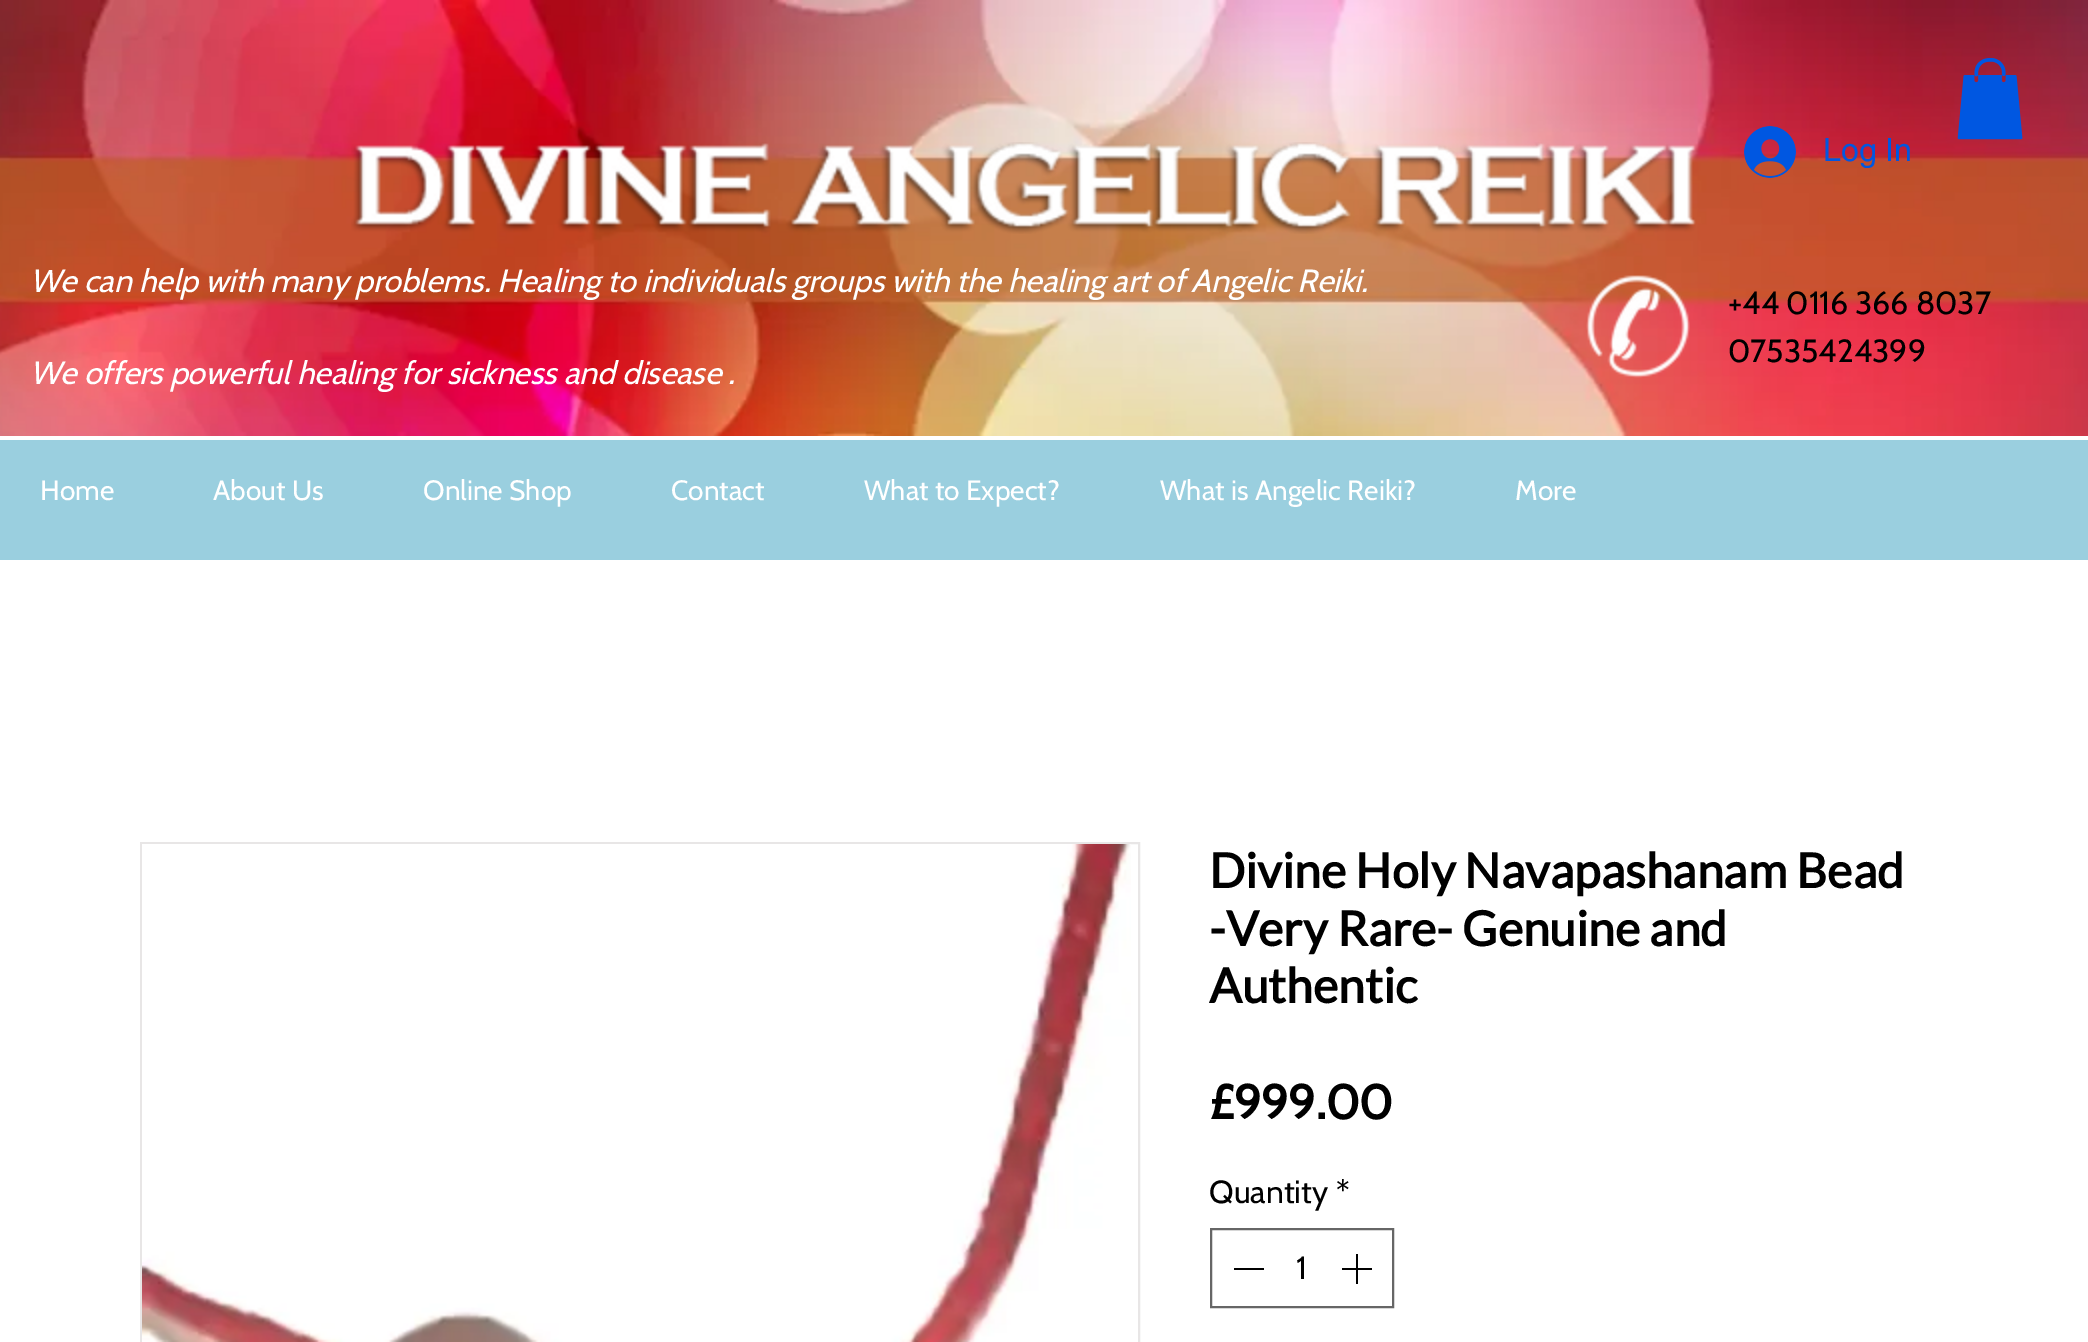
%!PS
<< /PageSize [2088 1342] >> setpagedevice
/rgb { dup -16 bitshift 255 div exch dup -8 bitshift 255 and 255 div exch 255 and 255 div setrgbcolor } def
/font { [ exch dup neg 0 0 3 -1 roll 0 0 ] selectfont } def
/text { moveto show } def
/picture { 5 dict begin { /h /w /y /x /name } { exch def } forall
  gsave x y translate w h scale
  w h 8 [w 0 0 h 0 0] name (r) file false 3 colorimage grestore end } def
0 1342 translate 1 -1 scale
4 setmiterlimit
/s1 { /helvetica-Regular 32 font 16#0057E1 rgb } def
/s2 { /Cabin-Italic 32 font 16#FFFFFF rgb } def
/s3 { /Cabin-Regular 32 font 16#000000 rgb } def
/s4 { /Cabin-Regular 28 font 16#FFFFFF rgb } def
/s5 { /Lato-Bold 48 font 16#000000 rgb } def
/s6 { /Cabin-Bold 48 font 16#000000 rgb } def
16#FFFFFF rgb
0 0 2088 1342 rectfill
(pic3.raw) 0 0 2088 436 picture
(pic1.raw) 1957 58 66 82 picture
(pic2.raw) 1744 126 52 52 picture
s1
(Log In) 1823 161 text
(pic4.raw) 351 142 1345 92 picture
s2
(We can help with many problems. Healing to individuals groups with the healing art of Angelic Reiki.) 30 292 text
(We offers powerful healing for sickness and disease .) 30 384 text
(pic5.raw) 1586 275 104 103 picture
s3
(+44 0116 366 8037) 1728 314 text
(07535424399) 1728 362 text
16#9ACFDF rgb
0 440 2088 120 rectfill
s4
(Home) 40 500 text
(About Us) 213 500 text
(Online Shop) 423 500 text
(Contact) 671 500 text
(What to Expect?) 864 500 text
(What is Angelic Reiki?) 1160 500 text
(More) 1515 500 text
16#E8E6E6 rgb
2 setlinewidth
141 843 998 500 rectstroke
(pic6.raw) 142 844 989 498 picture
s5
(Divine Holy Navapashanam Bead) 1209 888 text
(-Very Rare- Genuine and) 1209 946 text
(Authentic) 1209 1003 text
s6
(£999.00) 1209 1119 text
s3
(Quantity) 1209 1203 text
(*) 1336 1203 text
16#666666 rgb
1211 1229 182 78 rectstroke
16#000000 rgb
1234 1268 30 2 rectfill
(1) 1296 1279 text
(pic7.raw) 1342 1254 30 30 picture
showpage
